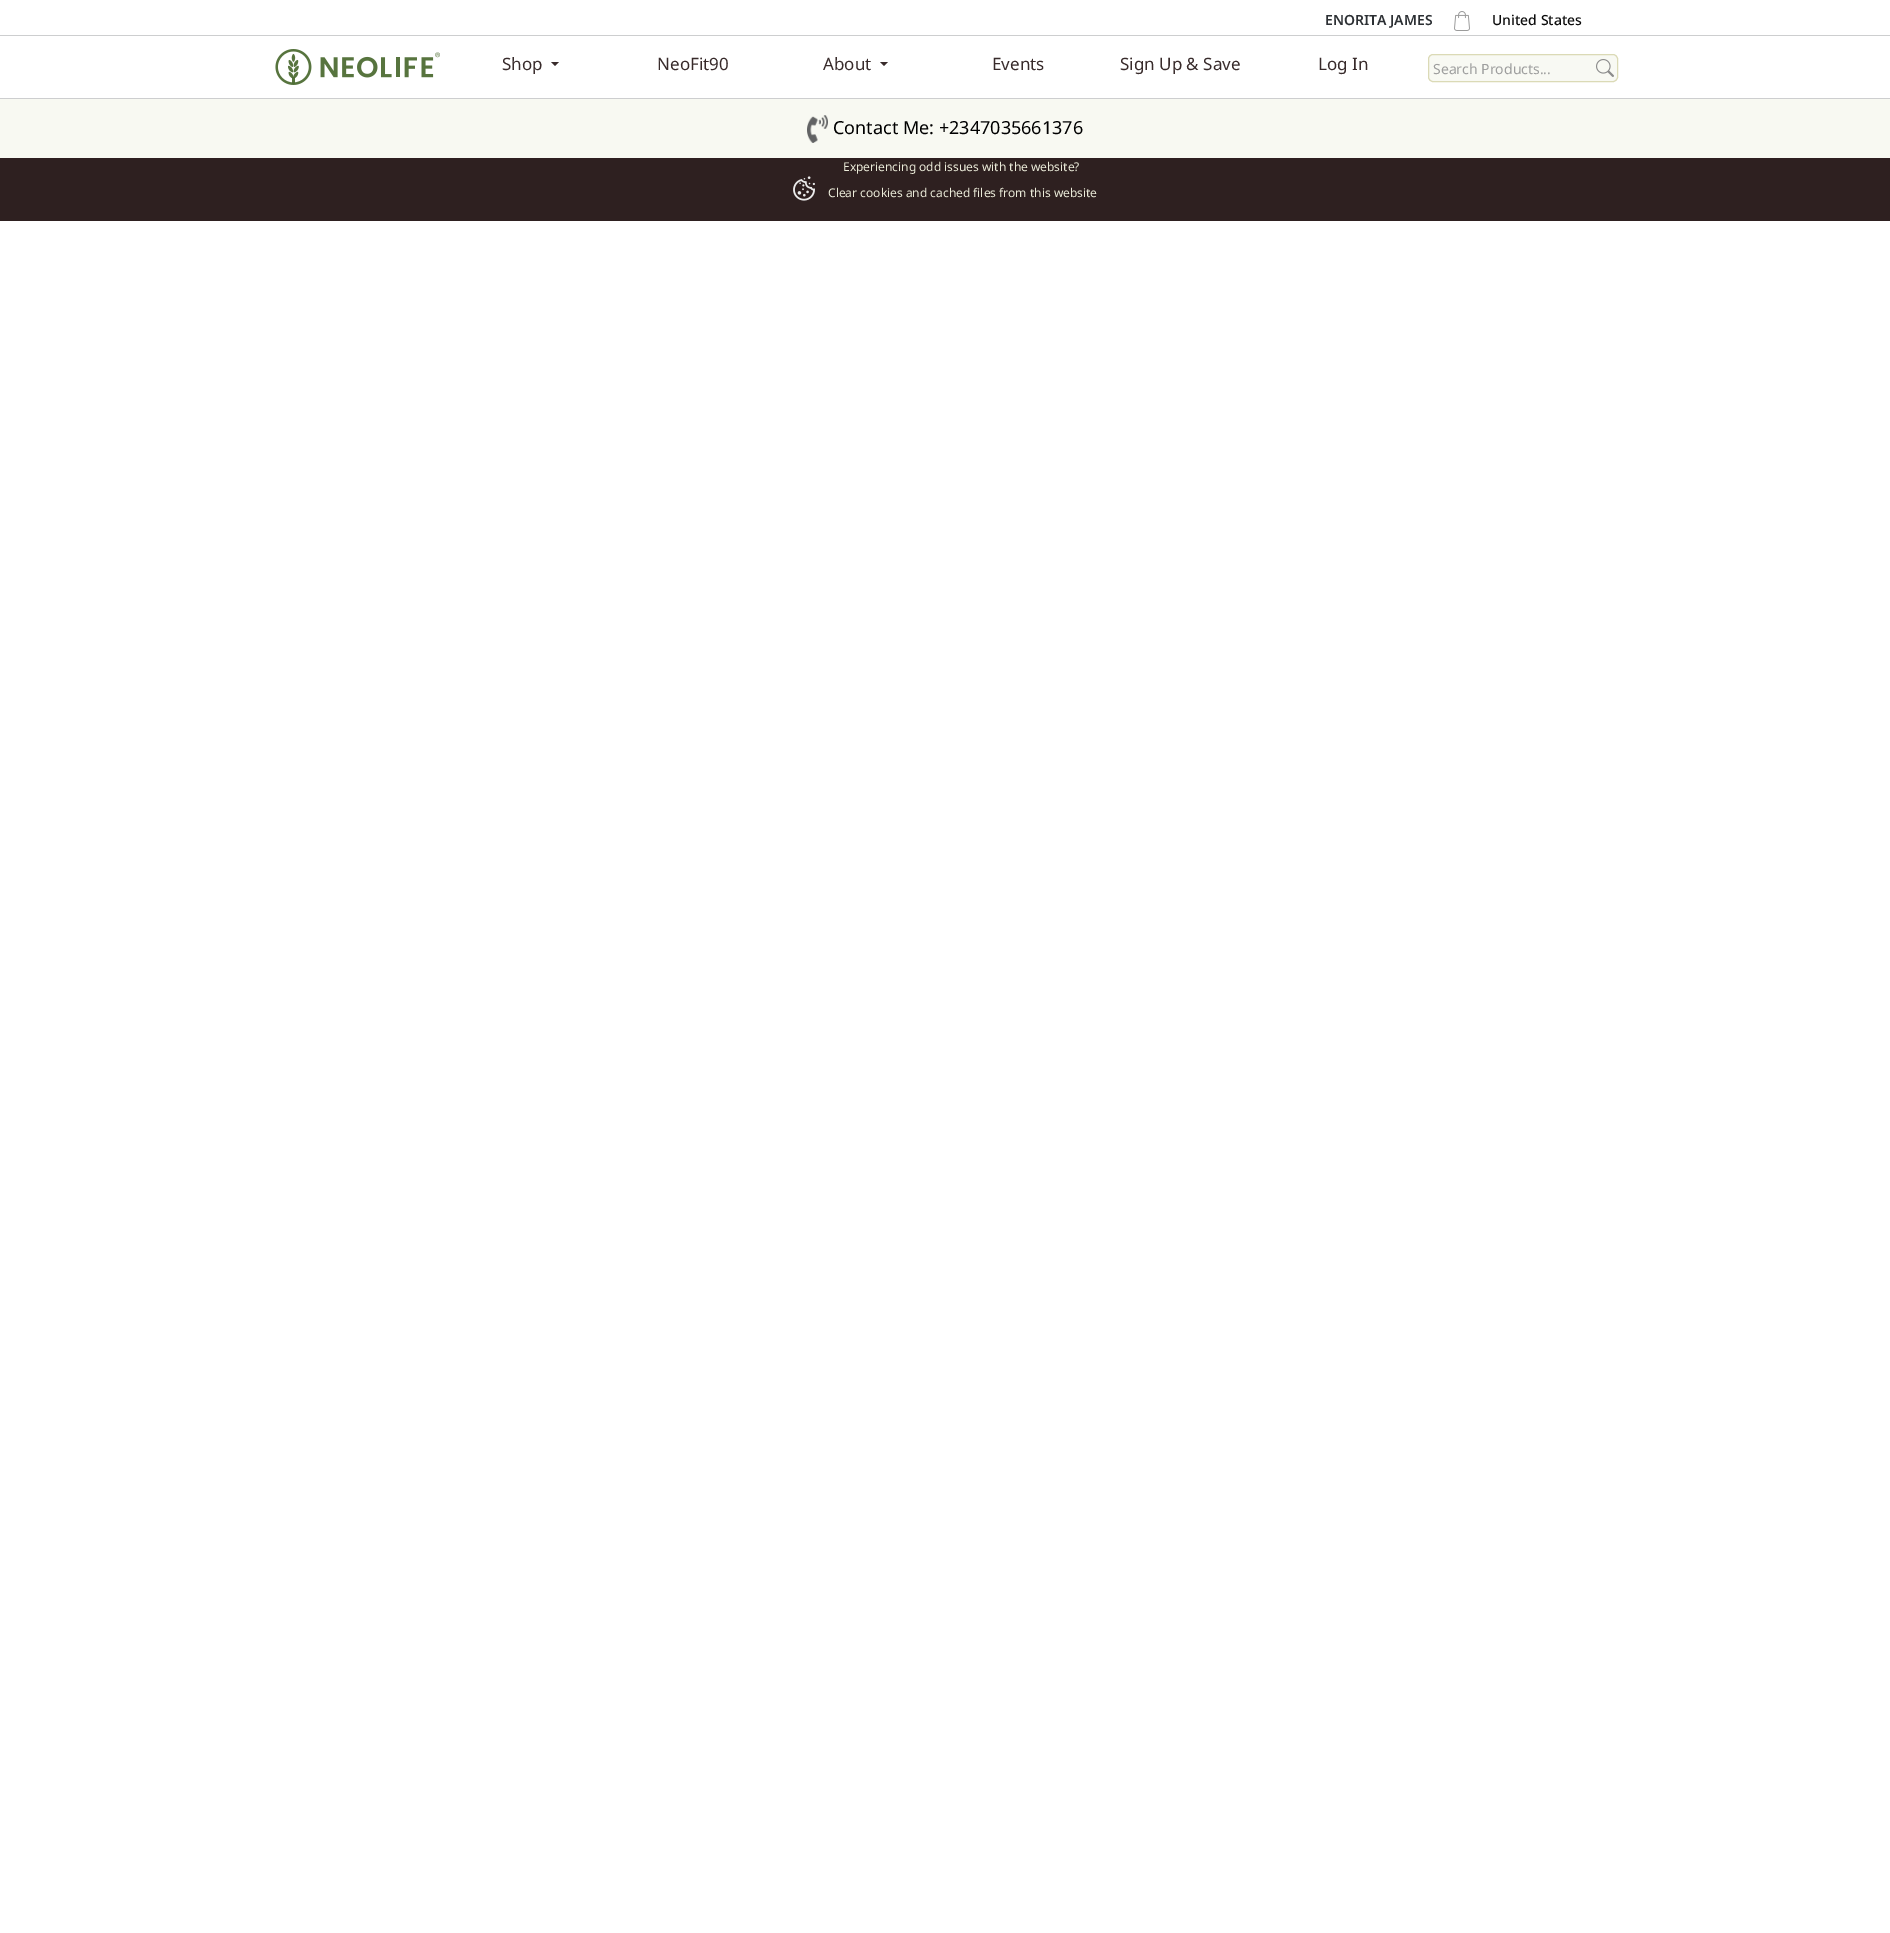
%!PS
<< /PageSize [1890 1933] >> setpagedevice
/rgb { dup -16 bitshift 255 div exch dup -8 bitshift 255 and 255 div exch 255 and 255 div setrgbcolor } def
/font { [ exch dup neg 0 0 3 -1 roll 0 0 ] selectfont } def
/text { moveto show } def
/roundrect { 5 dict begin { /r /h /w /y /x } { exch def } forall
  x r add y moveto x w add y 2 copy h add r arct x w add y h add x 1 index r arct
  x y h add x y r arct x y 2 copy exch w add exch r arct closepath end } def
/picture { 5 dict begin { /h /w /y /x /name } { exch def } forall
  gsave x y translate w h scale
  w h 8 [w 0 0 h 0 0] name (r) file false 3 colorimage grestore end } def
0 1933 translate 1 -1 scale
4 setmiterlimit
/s1 { /NotoSans-SemiBold 14 font 16#2C3034 rgb } def
/s2 { /NotoSans-Medium 14 font 16#0D0D0D rgb } def
/s3 { /NotoSans-Regular 17 font 16#382B2B rgb } def
/s4 { /NotoSans-Regular 14 font 16#9E9E9E rgb } def
/s5 { /NotoSans-Regular 18 font 16#000000 rgb } def
/s6 { /NotoSans-Regular 12 font 16#EBEBD9 rgb } def
16#FFFFFF rgb
0 0 1890 1933 rectfill
16#CDCECF rgb
0 98 1890 1 rectfill
0 35 1890 1 rectfill
s1
(ENORITA JAMES) 1325 25 text
(pic1.raw) 1454 11 16 20 picture
s2
(United States) 1492 25 text
(pic2.raw) 275 49 165 36 picture
s3
(Shop) 502 70 text
551 62 moveto 559 62 lineto 555 66 lineto closepath fill
(NeoFit90) 657 70 text
(About) 823 70 text
880 62 moveto 888 62 lineto 884 66 lineto closepath fill
(Events) 992 70 text
(Sign Up & Save) 1120 70 text
(Log In) 1318 70 text
16#F8F9F3 rgb
1428.5 54.5 189 27 4.5 roundrect gsave fill grestore
16#DBDAB6 rgb
stroke
s4
(Search Products...) 1433 74 text
(pic3.raw) 1596 59 18 18 picture
16#F8F9F2 rgb
0 99 1890 59 rectfill
(pic4.raw) 807 115 21 28 picture
s5
(Contact Me: +2347035661376) 833 134 text
16#2E2020 rgb
0 158 1890 63 rectfill
s6
(Experiencing odd issues with the website?) 843 171 text
(pic5.raw) 793 176 22 25 picture
(Clear cookies and cached files from this website) 828 197 text
showpage
